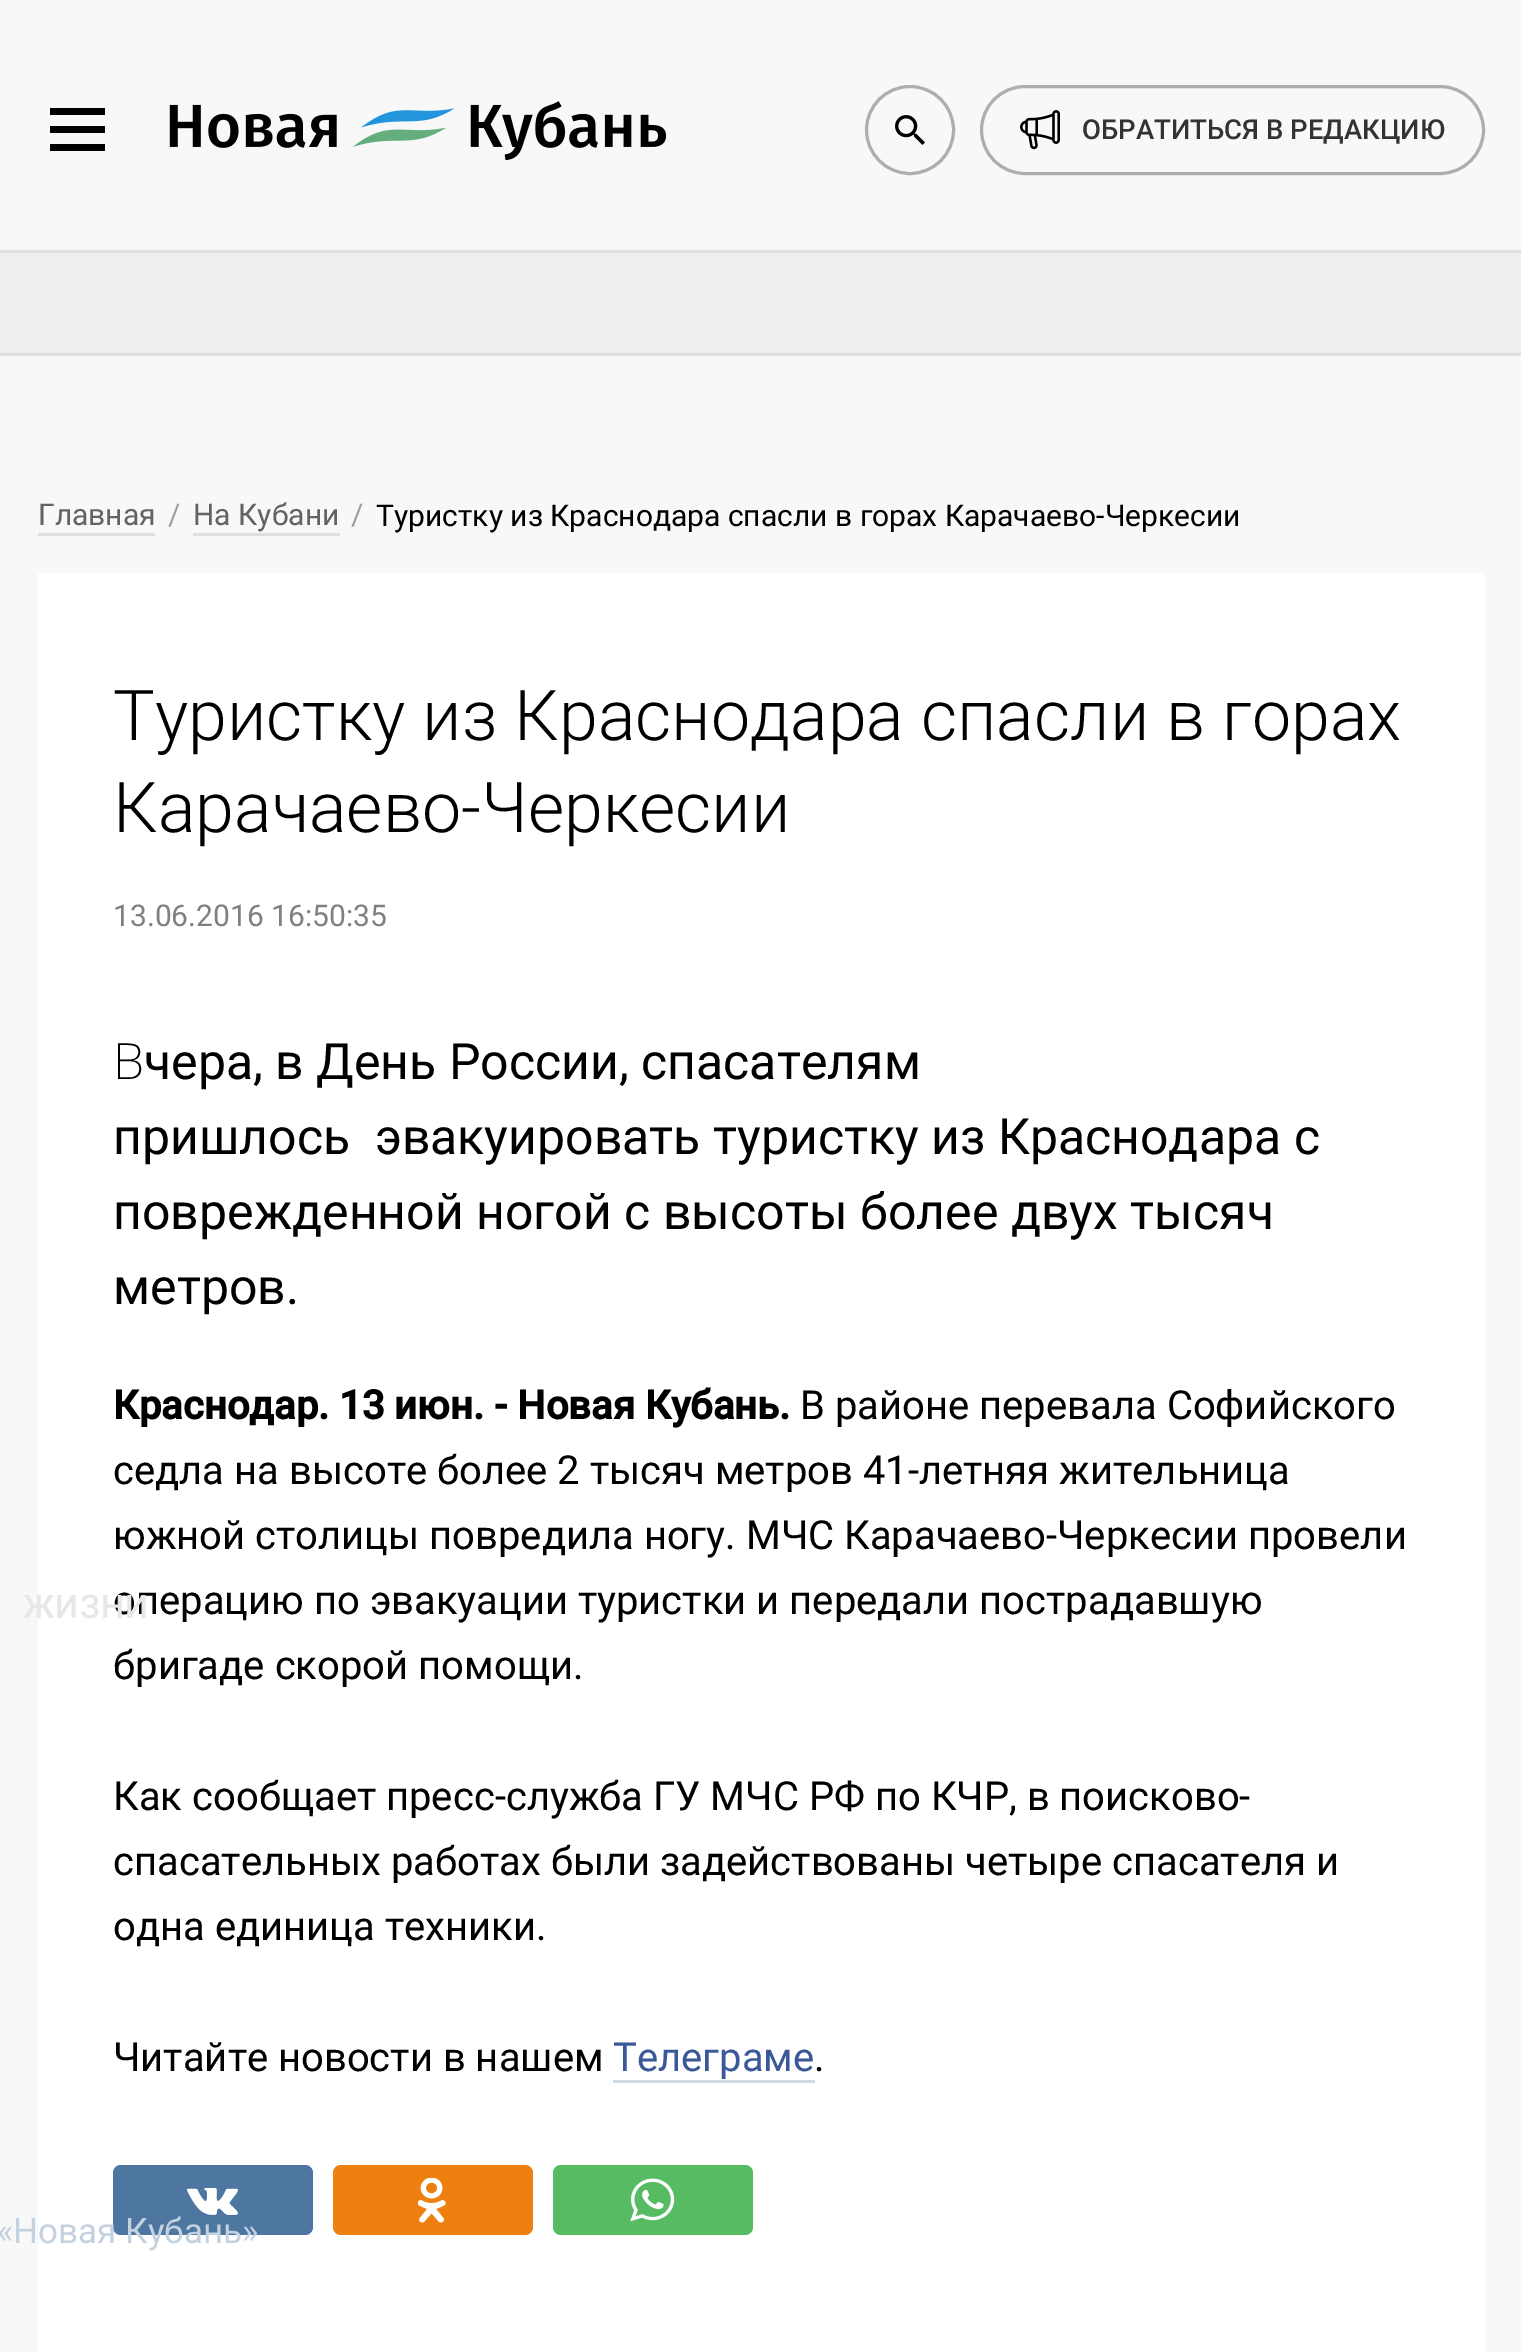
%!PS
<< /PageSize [1521 2352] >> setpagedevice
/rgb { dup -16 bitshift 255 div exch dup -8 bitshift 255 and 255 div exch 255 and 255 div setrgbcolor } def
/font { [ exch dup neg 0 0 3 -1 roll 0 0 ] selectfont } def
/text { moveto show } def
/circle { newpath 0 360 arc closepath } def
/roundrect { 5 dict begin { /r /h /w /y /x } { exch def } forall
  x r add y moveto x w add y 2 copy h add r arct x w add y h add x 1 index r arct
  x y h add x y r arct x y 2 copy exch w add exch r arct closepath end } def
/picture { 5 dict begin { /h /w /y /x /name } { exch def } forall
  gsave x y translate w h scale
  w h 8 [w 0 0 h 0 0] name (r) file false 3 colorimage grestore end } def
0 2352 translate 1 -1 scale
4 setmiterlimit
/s1 { /Roboto-Medium 27.5 font 16#333333 rgb } def
/s2 { /Roboto-Regular 30 font 16#636363 rgb } def
/s3 { /Roboto-Regular 30 font 16#9E9E9E rgb } def
/s4 { /Roboto-Regular 30 font 16#000000 rgb } def
/s5 { /Roboto-Light 70 font 16#000000 rgb } def
/s6 { /Roboto-Regular 30 font 16#808080 rgb } def
/s7 { /NotoSans-ExtraLight 50 font 16#000000 rgb } def
/s8 { /Roboto-Regular 50 font 16#000000 rgb } def
/s9 { /Roboto-Bold 40 font 16#000000 rgb } def
/s10 { /Roboto-Regular 40 font 16#000000 rgb } def
/s11 { /Roboto-Regular 40 font 16#3B5998 rgb } def
/s12 { /Roboto-Regular 35 font 16#C4D2E0 rgb } def
16#F8F8F8 rgb
0 0 1521 2352 rectfill
16#000000 rgb
50 151 moveto 105 151 lineto 105 144 lineto 50 144 lineto closepath 50 133 moveto 105 133 lineto 105 126 lineto 50 126 lineto closepath 50 108 moveto 50 115 lineto 105 115 lineto 105 108 lineto closepath fill
(pic1.raw) 169 101 498 59 picture
16#AEAEAE rgb
3 setlinewidth
910 130 43.5 circle stroke
(pic2.raw) 895 115 30 30 picture
981.5 86.5 502 87 43.5 roundrect stroke
(pic3.raw) 1020 110 40 40 picture
s1
(ОБРАТИТЬСЯ В РЕДАКЦИЮ) 1082 139 text
16#EEEEEE rgb
0 253 1521 100 rectfill
16#DFDFDF rgb
0 250 1521 3 rectfill
0 353 1521 3 rectfill
38 533 117 3 rectfill
s2
(Главная) 38 525 text
s3
(/) 168 525 text
16#DFDFDF rgb
193 533 147 3 rectfill
s2
(На Кубани) 193 525 text
s3
(/) 351 525 text
s4
(Туристку из Краснодара спасли в горах Карачаево-Черкесии) 376 526 text
16#FFFFFF rgb
38 573 1447 1779 rectfill
s5
(Туристку из Краснодара спасли в горах) 113 740 text
(Карачаево-Черкесии) 113 832 text
s6
(13.06.2016 16:50:35) 113 926 text
s7
(В) 113 1079 text
s8
(чера, в День России, спасателям) 144 1079 text
(пришлось  эвакуировать туристку из Краснодара с) 113 1154 text
(поврежденной ногой с высоты более двух тысяч) 113 1229 text
(метров.) 113 1304 text
s9
(Краснодар. 13 июн. - Новая Кубань.) 113 1419 text
s10
(В районе перевала Софийского) 800 1419 text
(седла на высоте более 2 тысяч метров 41-летняя жительница) 113 1484 text
(южной столицы повредила ногу. МЧС Карачаево-Черкесии провели) 113 1549 text
(операцию по эвакуации туристки и передали пострадавшую) 113 1614 text
(бригаде скорой помощи.) 113 1679 text
(Как сообщает пресс-служба ГУ МЧС РФ по КЧР, в поисково-) 113 1810 text
(спасательных работах были задействованы четыре спасателя и) 113 1875 text
(одна единица техники.) 113 1940 text
(Читайте новости в нашем) 113 2071 text
s11
(Телеграме) 613 2071 text
16#D2D9E6 rgb
613 2080 202 3 rectfill
s10
(.) 814 2071 text
16#4D76A1 rgb
113 2165 200 70 8 roundrect fill
(pic4.raw) 186 2188 52 27 picture
16#ED800F rgb
333 2165 200 70 8 roundrect fill
(pic5.raw) 418 2178 28 45 picture
16#57BB63 rgb
553 2165 200 70 8 roundrect fill
(pic6.raw) 630 2178 45 44 picture
/Roboto-Medium 32.5 font
16#E7E7E7 rgb
23 1618 moveto 1.25 0 (ЖИЗНИ) ashow
s12
(«Новая Кубань») -3 2243 text
showpage
